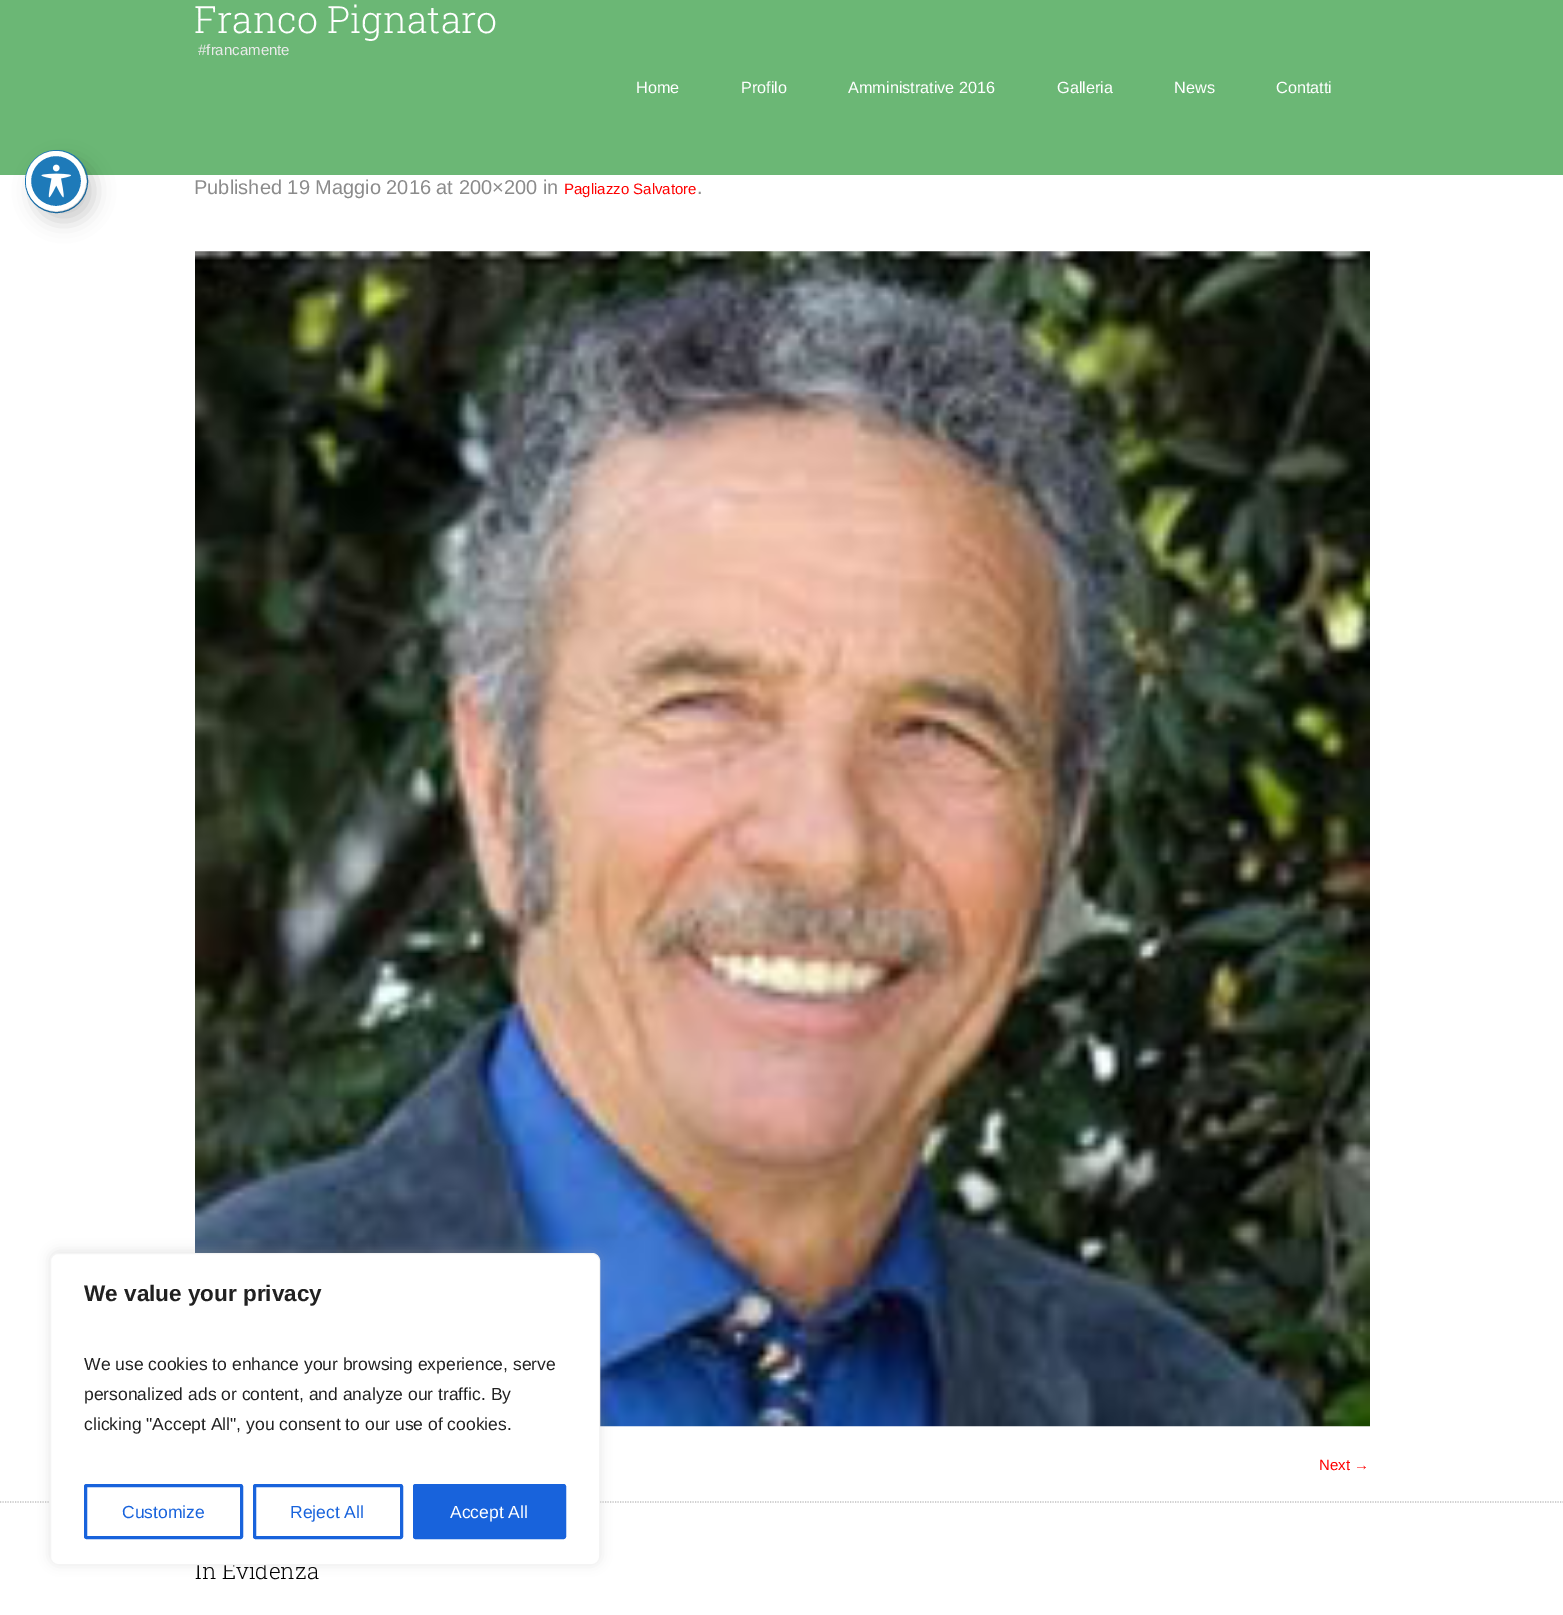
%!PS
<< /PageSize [1563 1615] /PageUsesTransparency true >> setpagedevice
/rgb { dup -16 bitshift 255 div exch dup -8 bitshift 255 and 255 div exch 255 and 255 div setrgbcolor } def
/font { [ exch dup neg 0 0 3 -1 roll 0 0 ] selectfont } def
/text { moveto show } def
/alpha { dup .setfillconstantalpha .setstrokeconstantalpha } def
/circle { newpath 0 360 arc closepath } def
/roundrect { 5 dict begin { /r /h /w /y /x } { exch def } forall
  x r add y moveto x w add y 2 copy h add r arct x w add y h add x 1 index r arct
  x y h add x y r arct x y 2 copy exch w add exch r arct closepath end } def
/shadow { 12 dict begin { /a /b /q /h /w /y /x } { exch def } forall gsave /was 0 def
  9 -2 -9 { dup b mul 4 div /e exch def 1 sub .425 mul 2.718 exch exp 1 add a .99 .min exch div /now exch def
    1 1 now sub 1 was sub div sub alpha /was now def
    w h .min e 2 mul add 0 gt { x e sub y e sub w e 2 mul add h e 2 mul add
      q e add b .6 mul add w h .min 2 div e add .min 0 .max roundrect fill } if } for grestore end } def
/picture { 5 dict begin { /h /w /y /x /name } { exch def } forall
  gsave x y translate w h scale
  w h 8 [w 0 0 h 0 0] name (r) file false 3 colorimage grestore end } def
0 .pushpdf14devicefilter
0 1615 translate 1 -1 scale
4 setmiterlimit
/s1 { /RobotoSlab-Light 37.5 font 16#FFFFFF rgb } def
/s2 { /LiberationSans-Regular 15 font 16#EAEAEA rgb } def
/s3 { /LiberationSans-Regular 16.25 font 16#FFFFFF rgb } def
/s4 { /LiberationSans-Regular 20 font 16#8B8B8B rgb } def
/s5 { /LiberationSans-Regular 15 font 16#FF0000 rgb } def
/s6 { /RobotoSlab-Light 22.5 font 16#000000 rgb } def
/s7 { /LiberationSans-Bold 22.5 font 16#212121 rgb } def
/s8 { /LiberationSans-Regular 17.5 font 16#212121 rgb } def
/s9 { /LiberationSans-Regular 17.5 font 16#1863DC rgb } def
/s10 { /LiberationSans-Regular 17.5 font 16#FFFFFF rgb } def
16#FFFFFF rgb
0 0 1563 1615 rectfill
16#6BB775 rgb
0 0 1563 175 rectfill
16#1E7AB9 rgb
56.5 181.5 31 circle stroke
16#000000 rgb
34 161 60 60 30 10 0.2 shadow
16#1E7AB9 rgb
56 181 27.5 circle gsave fill grestore
16#FFFFFF rgb
5 setlinewidth
stroke
(pic1.raw) 41 164 30 34 picture
s1
(Franco Pignataro) 194 33 text
s2
(#francamente) 198 55 text
s3
(Home) 636 93 text
(Profilo) 741 93 text
(Amministrative 2016) 848 93 text
(Galleria) 1057 93 text
(News) 1174 93 text
(Contatti) 1276 93 text
s4
(Published 19 Maggio 2016 at 200×200 in) 194 194 text
s5
(Pagliazzo Salvatore) 564 194 text
s4
(.) 697 194 text
(pic2.raw) 195 251 1175 1176 picture
s5
(Next →) 1319 1470 text
16#BFBFBF rgb
1.2 setlinewidth
[1.25 1.25] 0 setdash
0 1502 moveto 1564 1502 lineto stroke
s6
(In Evidenza) 195 1579 text
16#ACABAB rgb
50 1251 550 313 8 6 0.3 shadow
16#FFFFFF rgb
50.5 1253.5 549 311 7.5 roundrect gsave fill grestore
16#F4F4F4 rgb
1 setlinewidth
[] 0 setdash
stroke
s7
(We value your privacy) 84 1301 text
s8
(We use cookies to enhance your browsing experience, serve) 84 1370 text
(personalized ads or content, and analyze our traffic. By) 84 1400 text
(clicking "Accept All", you consent to our use of cookies.) 84 1430 text
16#1863DC rgb
3 setlinewidth
85.5 1485.5 156 52 1 roundrect stroke
(Customize) 122 1518 text
254.5 1485.5 147 52 1 roundrect stroke
(Reject All) 290 1518 text
414.5 1485.5 150 52 1 roundrect gsave fill grestore
stroke
s10
(Accept All) 450 1518 text
.poppdf14devicefilter showpage
